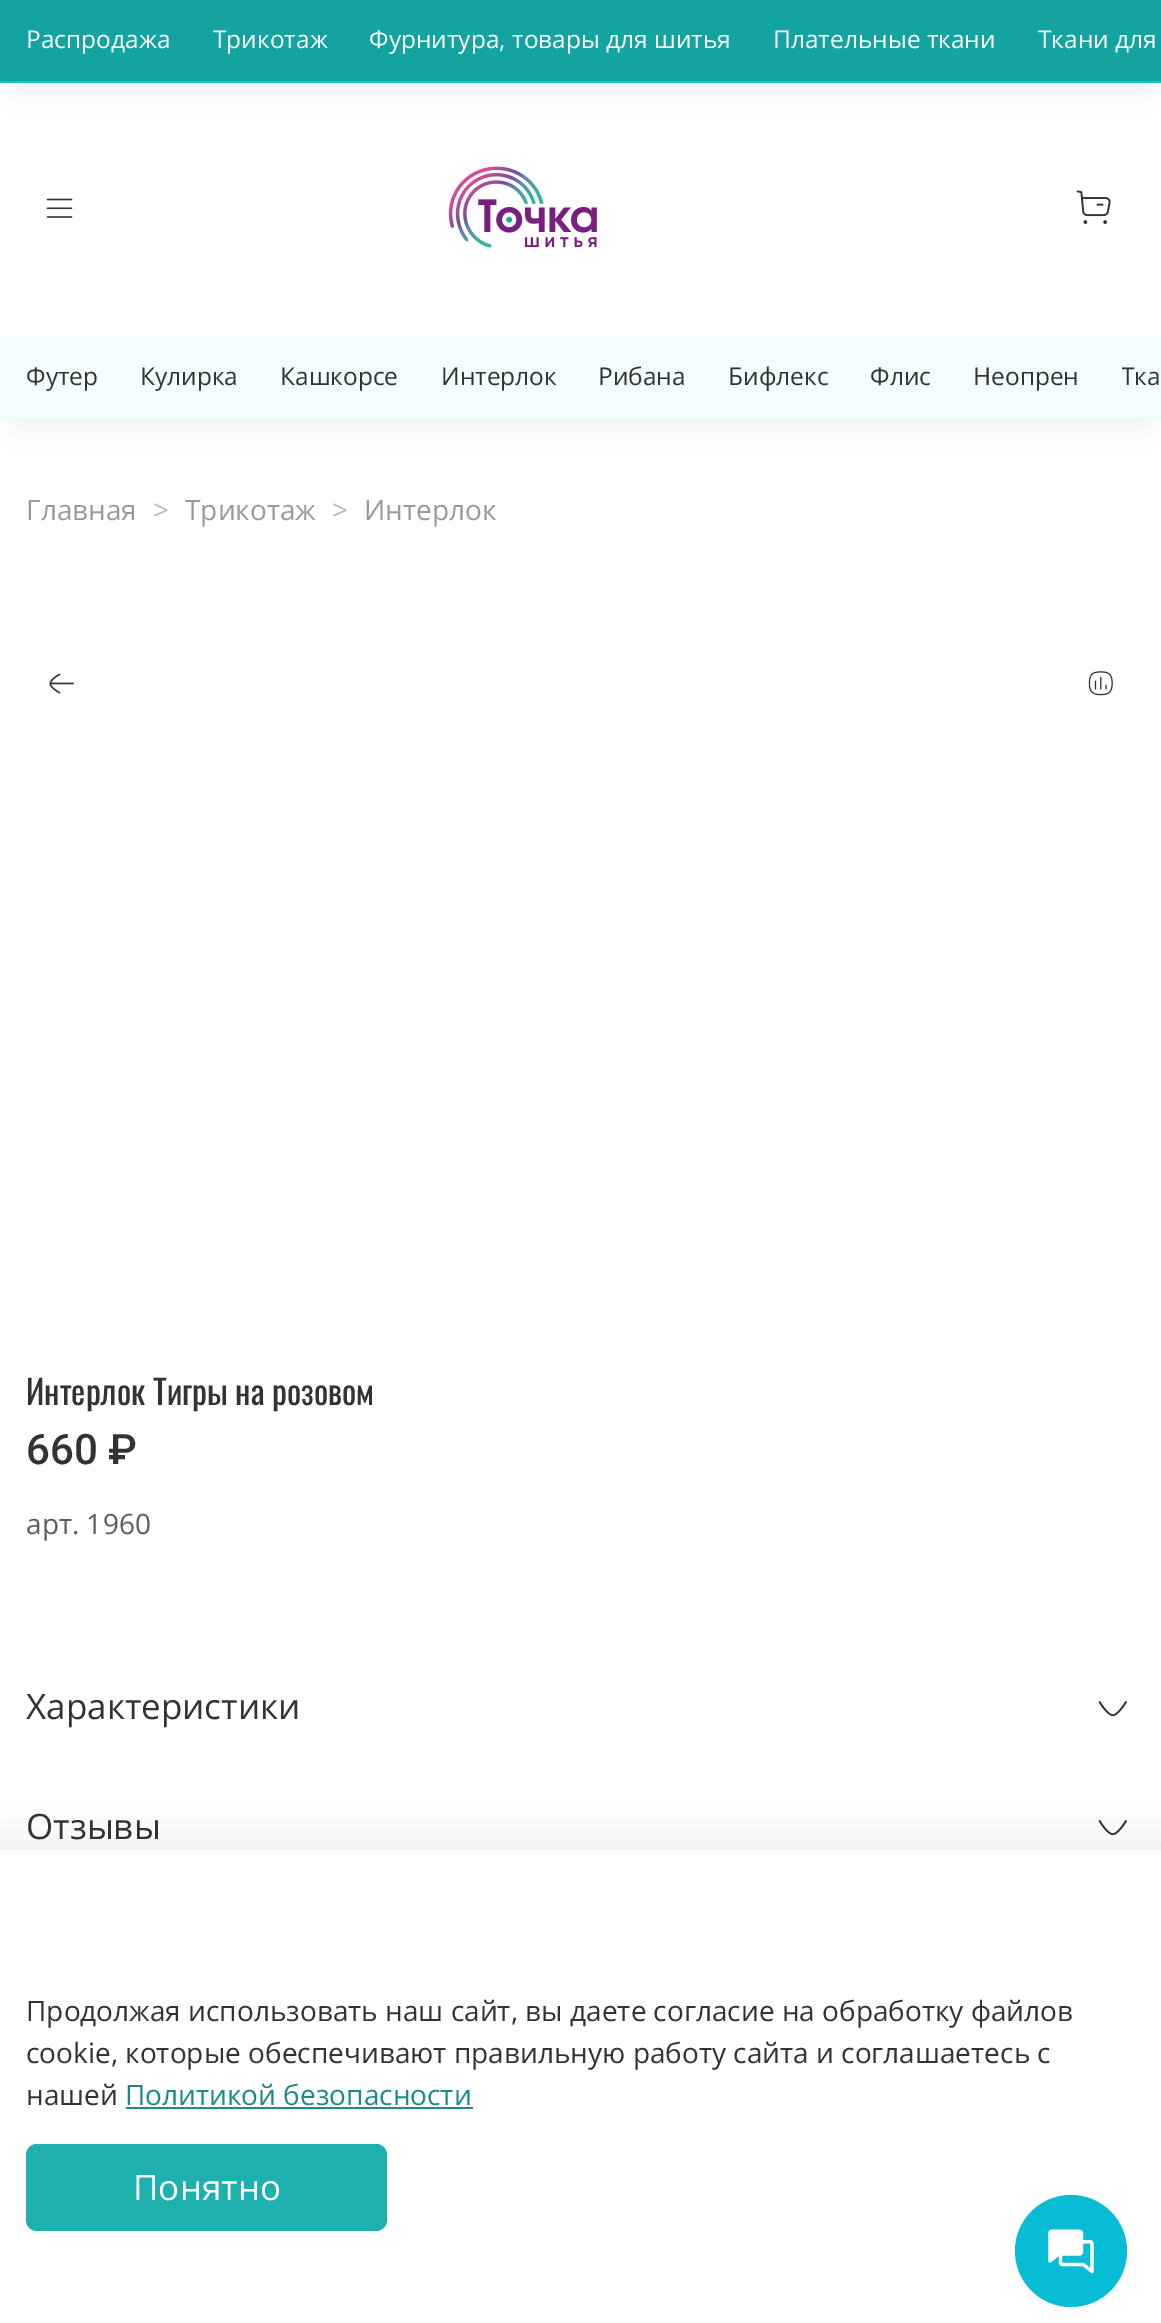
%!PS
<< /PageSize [1161 2323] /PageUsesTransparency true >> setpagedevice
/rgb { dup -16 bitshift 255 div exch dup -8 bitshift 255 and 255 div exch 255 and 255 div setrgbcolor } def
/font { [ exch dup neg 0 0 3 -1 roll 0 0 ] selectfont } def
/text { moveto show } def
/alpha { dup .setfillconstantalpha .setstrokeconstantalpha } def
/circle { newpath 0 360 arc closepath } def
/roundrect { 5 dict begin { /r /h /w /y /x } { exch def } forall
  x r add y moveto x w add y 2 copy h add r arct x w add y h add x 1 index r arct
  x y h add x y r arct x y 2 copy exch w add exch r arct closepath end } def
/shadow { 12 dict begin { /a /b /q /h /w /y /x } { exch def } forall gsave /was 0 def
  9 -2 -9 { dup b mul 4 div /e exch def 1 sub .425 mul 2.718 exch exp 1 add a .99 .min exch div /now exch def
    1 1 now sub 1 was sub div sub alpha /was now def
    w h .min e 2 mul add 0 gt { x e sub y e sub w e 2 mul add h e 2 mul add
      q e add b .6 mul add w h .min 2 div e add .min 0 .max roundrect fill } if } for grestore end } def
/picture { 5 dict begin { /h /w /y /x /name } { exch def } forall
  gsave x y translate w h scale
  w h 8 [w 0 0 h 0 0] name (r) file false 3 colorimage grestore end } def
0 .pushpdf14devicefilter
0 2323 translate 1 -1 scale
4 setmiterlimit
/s1 { /OpenSans-Regular 24.5 font 16#FFFFFF rgb } def
/s2 { /OpenSans-Regular 24.5 font 16#333333 rgb } def
/s3 { /OpenSans-Regular 28 font 16#999999 rgb } def
/s4 { /OpenSans-Regular 28 font 16#B8B8B8 rgb } def
/s5 { /Oswald-Regular 33.6 font 16#333333 rgb } def
/s6 { /Roboto-Medium 42 font 16#333333 rgb } def
/s7 { /OpenSans-Regular 28 font 16#5C5C5C rgb } def
/s8 { /OpenSans-Regular 35 font 16#333333 rgb } def
/s9 { /OpenSans-Regular 28 font 16#333333 rgb } def
/s10 { /OpenSans-Regular 28 font 16#1D8A88 rgb } def
/s11 { /OpenSans-Regular 35 font 16#FFFFFF rgb } def
16#FFFFFF rgb
0 0 1161 2323 rectfill
16#000000 rgb
18 35 1127 47 0 17.5 0.1 shadow
16#13A3A1 rgb
0 0 1161 81 rectfill
16#17C2BF rgb
0 81 1161 2 rectfill
s1
(Распродажа) 26 48 text
(Трикотаж) 213 48 text
(Фурнитура, товары для шитья) 369 48 text
(Плательные ткани) 773 48 text
(Ткани для) 1038 48 text
(pic1.raw) 46 198 27 20 picture
(pic2.raw) 448 166 149 82 picture
(pic3.raw) 1076 190 35 34 picture
16#000000 rgb
18 371 1127 47 0 17.5 0.1 shadow
16#F3FFFE rgb
0 336 1161 81 rectfill
16#E6FFFD rgb
0 417 1161 2 rectfill
s2
(Футер) 26 385 text
(Кулирка) 140 385 text
(Кашкорсе) 280 385 text
(Интерлок) 441 385 text
(Рибана) 598 385 text
(Бифлекс) 728 385 text
(Флис) 870 385 text
(Неопрен) 973 385 text
gsave
1122 350 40 53 rectclip
(Тка) 1121 385 text
grestore
s3
(Главная) 26 520 text
s4
(>) 153 520 text
s3
(Трикотаж) 185 520 text
s4
(>) 332 520 text
s3
(Интерлок) 364 520 text
(pic4.raw) 49 673 25 21 picture
(pic5.raw) 1088 671 25 25 picture
s5
(Интерлок Тигры на розовом) 26 1405 text
s6
(660 ₽) 26 1464 text
s7
(арт. 1960) 26 1534 text
s8
(Характеристики) 26 1719 text
(pic6.raw) 1098 1701 29 16 picture
(Отзывы) 26 1839 text
(pic6.raw) 1098 1820 29 16 picture
16#000000 rgb
-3 1845 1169 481 0 20 0.09 shadow
16#FFFFFF rgb
0 1850 1161 473 rectfill
s9
(Продолжая использовать наш сайт, вы даете согласие на обработку файлов) 26 2021 text
(cookie, которые обеспечивают правильную работу сайта и соглашаетесь с) 26 2063 text
(нашей) 26 2105 text
s10
(Политикой безопасности) 125 2105 text
126 2107 347 2 rectfill
16#1EB0AE rgb
26 2144 361 87 11 roundrect fill
s11
(Понятно) 133 2200 text
16#07BCD5 rgb
1071 2251 56 circle fill
(pic7.raw) 1048 2229 46 45 picture
.poppdf14devicefilter showpage
